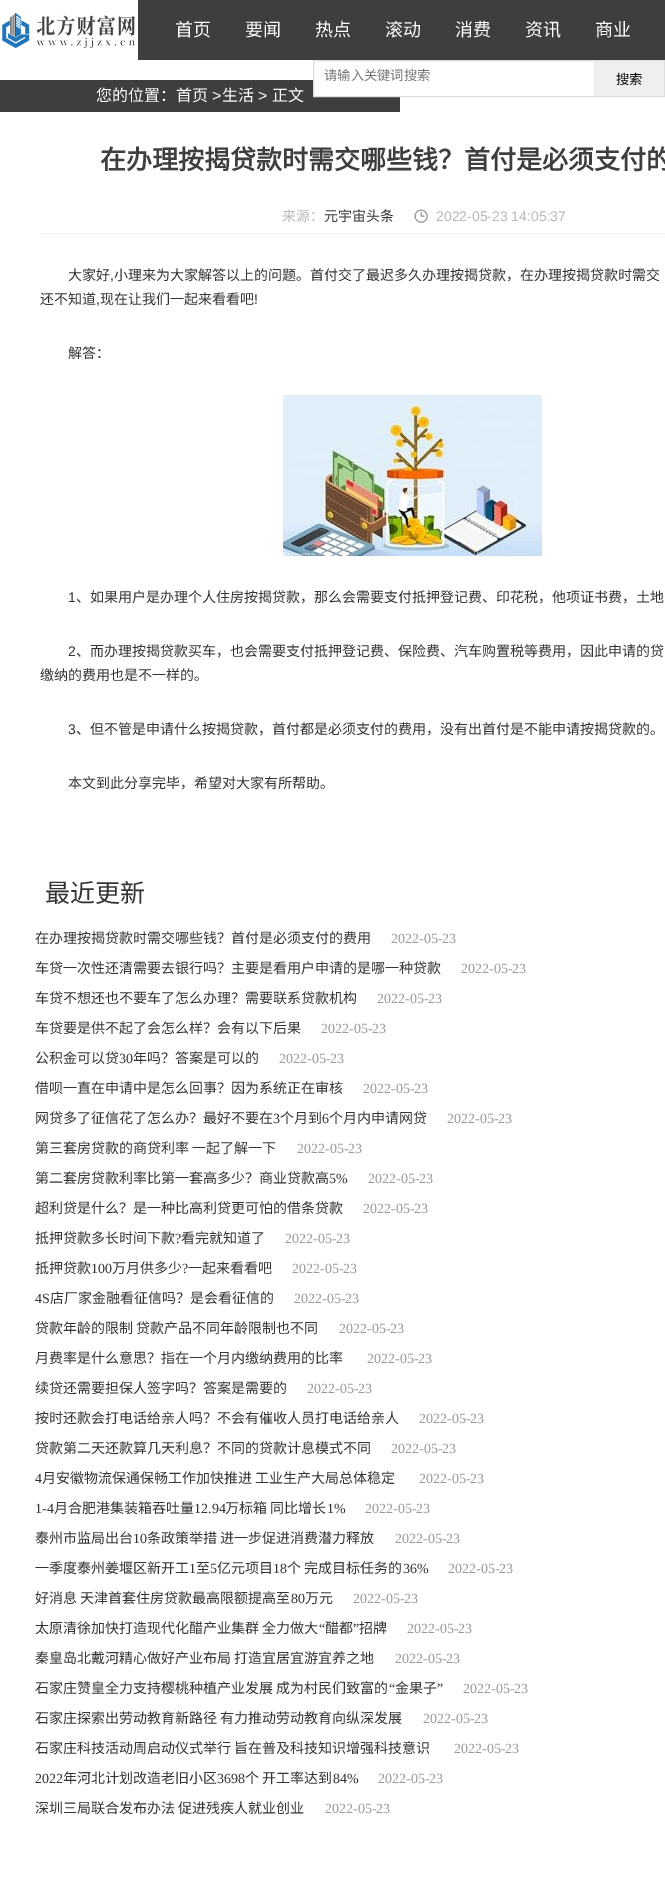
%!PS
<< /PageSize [665 1901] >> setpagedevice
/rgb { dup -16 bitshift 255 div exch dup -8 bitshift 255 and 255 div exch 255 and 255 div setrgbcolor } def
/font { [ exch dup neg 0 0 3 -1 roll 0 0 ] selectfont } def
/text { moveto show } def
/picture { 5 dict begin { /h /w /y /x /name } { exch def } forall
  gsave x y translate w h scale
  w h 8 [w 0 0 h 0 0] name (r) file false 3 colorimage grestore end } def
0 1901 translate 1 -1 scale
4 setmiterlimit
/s1 { /NotoSansCJKSC-Regular 18 font 16#FFFFFF rgb } def
/s2 { /NotoSansCJKSC-Regular 13.25 font 16#757575 rgb } def
/s3 { /NotoSansCJKSC-Regular 13.25 font 16#000000 rgb } def
/s4 { /NotoSansCJKSC-Regular 16 font 16#FFFFFF rgb } def
/s5 { /LiberationSans-Regular 16 font 16#FFFFFF rgb } def
/s6 { /NotoSansCJKSC-Bold 26 font 16#3E3E3E rgb } def
/s7 { /NotoSansCJKSC-Regular 14 font 16#B9B9B9 rgb } def
/s8 { /NotoSansCJKSC-Regular 14 font 16#333333 rgb } def
/s9 { /LiberationSans-Regular 14 font 16#B9B9B9 rgb } def
/s10 { /LiberationSans-Regular 14 font 16#333333 rgb } def
/s11 { /NotoSansCJKSC-Regular 25 font 16#333333 rgb } def
/s12 { /LiberationSerif-Regular 14 font 16#999999 rgb } def
/s13 { /LiberationSerif-Regular 14 font 16#333333 rgb } def
16#FFFFFF rgb
0 0 665 1901 rectfill
16#3E3E3E rgb
138 0 527 60 rectfill
(pic1.raw) 0 0 138 60 picture
s1
(首页) 175 36 text
(要闻) 245 36 text
(热点) 315 36 text
(滚动) 385 36 text
(消费) 455 36 text
(资讯) 525 36 text
(商业) 595 36 text
16#3E3E3E rgb
0 80 400 32 rectfill
16#FFFFFF rgb
314 80 86 16 rectfill
16#DFDCDC rgb
313.5 60.5 351 36 rectstroke
s2
(请输入关键词搜索) 324 80 text
16#EFEFEF rgb
594 61 70 35 rectfill
s3
(搜索) 616 84 text
s4
(您的位置：首页) 96 101 text
s5
(>) 212 101 text
s4
(生活) 222 101 text
s5
(>) 258 101 text
s4
(正文) 272 101 text
16#F2F2F2 rgb
40 233 625 1 rectfill
s6
(在办理按揭贷款时需交哪些钱？首付是必须支付的) 100 169 text
s7
(来源：) 282 221 text
s8
(元宇宙头条) 324 221 text
(pic2.raw) 414 209 14 14 picture
s9
(2022-05-23 14:05:37) 436 221 text
s8
(大家好) 68 280 text
s10
(,) 110 280 text
s8
(小理来为大家解答以上的问题。首付交了最迟多久办理按揭贷款，在办理按揭贷款时需交) 114 280 text
(还不知道) 40 304 text
s10
(,) 96 304 text
s8
(现在让我们一起来看看吧) 100 304 text
s10
(!) 254 304 text
s8
(解答：) 68 358 text
(pic3.raw) 283 395 259 161 picture
s10
(1) 68 602 text
s8
(、如果用户是办理个人住房按揭贷款，那么会需要支付抵押登记费、印花税，他项证书费，土地) 76 602 text
s10
(2) 68 656 text
s8
(、而办理按揭贷款买车，也会需要支付抵押登记费、保险费、汽车购置税等费用，因此申请的贷) 76 656 text
(缴纳的费用也是不一样的。) 40 680 text
s10
(3) 68 734 text
s8
(、但不管是申请什么按揭贷款，首付都是必须支付的费用，没有出首付是不能申请按揭贷款的。) 76 734 text
(本文到此分享完毕，希望对大家有所帮助。) 68 788 text
s11
(最近更新) 45 902 text
s8
(在办理按揭贷款时需交哪些钱？首付是必须支付的费用) 35 943 text
s12
(2022-05-23) 391 943 text
s8
(车贷一次性还清需要去银行吗？主要是看用户申请的是哪一种贷款) 35 973 text
s12
(2022-05-23) 461 973 text
s8
(车贷不想还也不要车了怎么办理？需要联系贷款机构) 35 1003 text
s12
(2022-05-23) 377 1003 text
s8
(车贷要是供不起了会怎么样？会有以下后果) 35 1033 text
s12
(2022-05-23) 321 1033 text
s8
(公积金可以贷) 35 1063 text
s13
(30) 119 1063 text
s8
(年吗？答案是可以的) 133 1063 text
s12
(2022-05-23) 279 1063 text
s8
(借呗一直在申请中是怎么回事？因为系统正在审核) 35 1093 text
s12
(2022-05-23) 363 1093 text
s8
(网贷多了征信花了怎么办？最好不要在) 35 1123 text
s13
(3) 273 1123 text
s8
(个月到) 280 1123 text
s13
(6) 322 1123 text
s8
(个月内申请网贷) 329 1123 text
s12
(2022-05-23) 447 1123 text
s8
(第三套房贷款的商贷利率 一起了解一下) 35 1153 text
s12
(2022-05-23) 297 1153 text
s8
(第二套房贷款利率比第一套高多少？商业贷款高) 35 1183 text
s13
(5%) 329 1183 text
s12
(2022-05-23) 368 1183 text
s8
(超利贷是什么？是一种比高利贷更可怕的借条贷款) 35 1213 text
s12
(2022-05-23) 363 1213 text
s8
(抵押贷款多长时间下款) 35 1243 text
s13
(?) 175 1243 text
s8
(看完就知道了) 181 1243 text
s12
(2022-05-23) 285 1243 text
s8
(抵押贷款) 35 1273 text
s13
(100) 91 1273 text
s8
(万月供多少) 112 1273 text
s13
(?) 182 1273 text
s8
(一起来看看吧) 188 1273 text
s12
(2022-05-23) 292 1273 text
s13
(4S) 35 1303 text
s8
(店厂家金融看征信吗？是会看征信的) 50 1303 text
s12
(2022-05-23) 294 1303 text
s8
(贷款年龄的限制 贷款产品不同年龄限制也不同) 35 1333 text
s12
(2022-05-23) 339 1333 text
s8
(月费率是什么意思？指在一个月内缴纳费用的比率) 35 1363 text
s12
(2022-05-23) 367 1363 text
s8
(续贷还需要担保人签字吗？答案是需要的) 35 1393 text
s12
(2022-05-23) 307 1393 text
s8
(按时还款会打电话给亲人吗？不会有催收人员打电话给亲人) 35 1423 text
s12
(2022-05-23) 419 1423 text
s8
(贷款第二天还款算几天利息？不同的贷款计息模式不同) 35 1453 text
s12
(2022-05-23) 391 1453 text
s13
(4) 35 1483 text
s8
(月安徽物流保通保畅工作加快推进 工业生产大局总体稳定) 42 1483 text
s12
(2022-05-23) 419 1483 text
s13
(1-4) 35 1513 text
s8
(月合肥港集装箱吞吐量) 54 1513 text
s13
(12.94) 194 1513 text
s8
(万标箱 同比增长) 225 1513 text
s13
(1%) 327 1513 text
s12
(2022-05-23) 365 1513 text
s8
(泰州市监局出台) 35 1543 text
s13
(10) 133 1543 text
s8
(条政策举措 进一步促进消费潜力释放) 147 1543 text
s12
(2022-05-23) 395 1543 text
s8
(一季度泰州姜堰区新开工) 35 1573 text
s13
(1) 189 1573 text
s8
(至) 196 1573 text
s13
(5) 210 1573 text
s8
(亿元项目) 217 1573 text
s13
(18) 273 1573 text
s8
(个 完成目标任务的) 287 1573 text
s13
(36%) 403 1573 text
s12
(2022-05-23) 448 1573 text
s8
(好消息 天津首套住房贷款最高限额提高至) 35 1603 text
s13
(80) 291 1603 text
s8
(万元) 305 1603 text
s12
(2022-05-23) 353 1603 text
s8
(太原清徐加快打造现代化醋产业集群 全力做大) 35 1633 text
s13
(“) 319 1633 text
s8
(醋都) 325 1633 text
s13
(”) 353 1633 text
s8
(招牌) 359 1633 text
s12
(2022-05-23) 407 1633 text
s8
(秦皇岛北戴河精心做好产业布局 打造宜居宜游宜养之地) 35 1663 text
s12
(2022-05-23) 395 1663 text
s8
(石家庄赞皇全力支持樱桃种植产业发展 成为村民们致富的) 35 1693 text
s13
(“) 389 1693 text
s8
(金果子) 395 1693 text
s13
(”) 437 1693 text
s12
(2022-05-23) 463 1693 text
s8
(石家庄探索出劳动教育新路径 有力推动劳动教育向纵深发展) 35 1723 text
s12
(2022-05-23) 423 1723 text
s8
(石家庄科技活动周启动仪式举行 旨在普及科技知识增强科技意识) 35 1753 text
s12
(2022-05-23) 454 1753 text
s13
(2022) 35 1783 text
s8
(年河北计划改造老旧小区) 63 1783 text
s13
(3698) 217 1783 text
s8
(个 开工率达到) 245 1783 text
s13
(84%) 333 1783 text
s12
(2022-05-23) 378 1783 text
s8
(深圳三局联合发布办法 促进残疾人就业创业) 35 1813 text
s12
(2022-05-23) 325 1813 text
showpage
